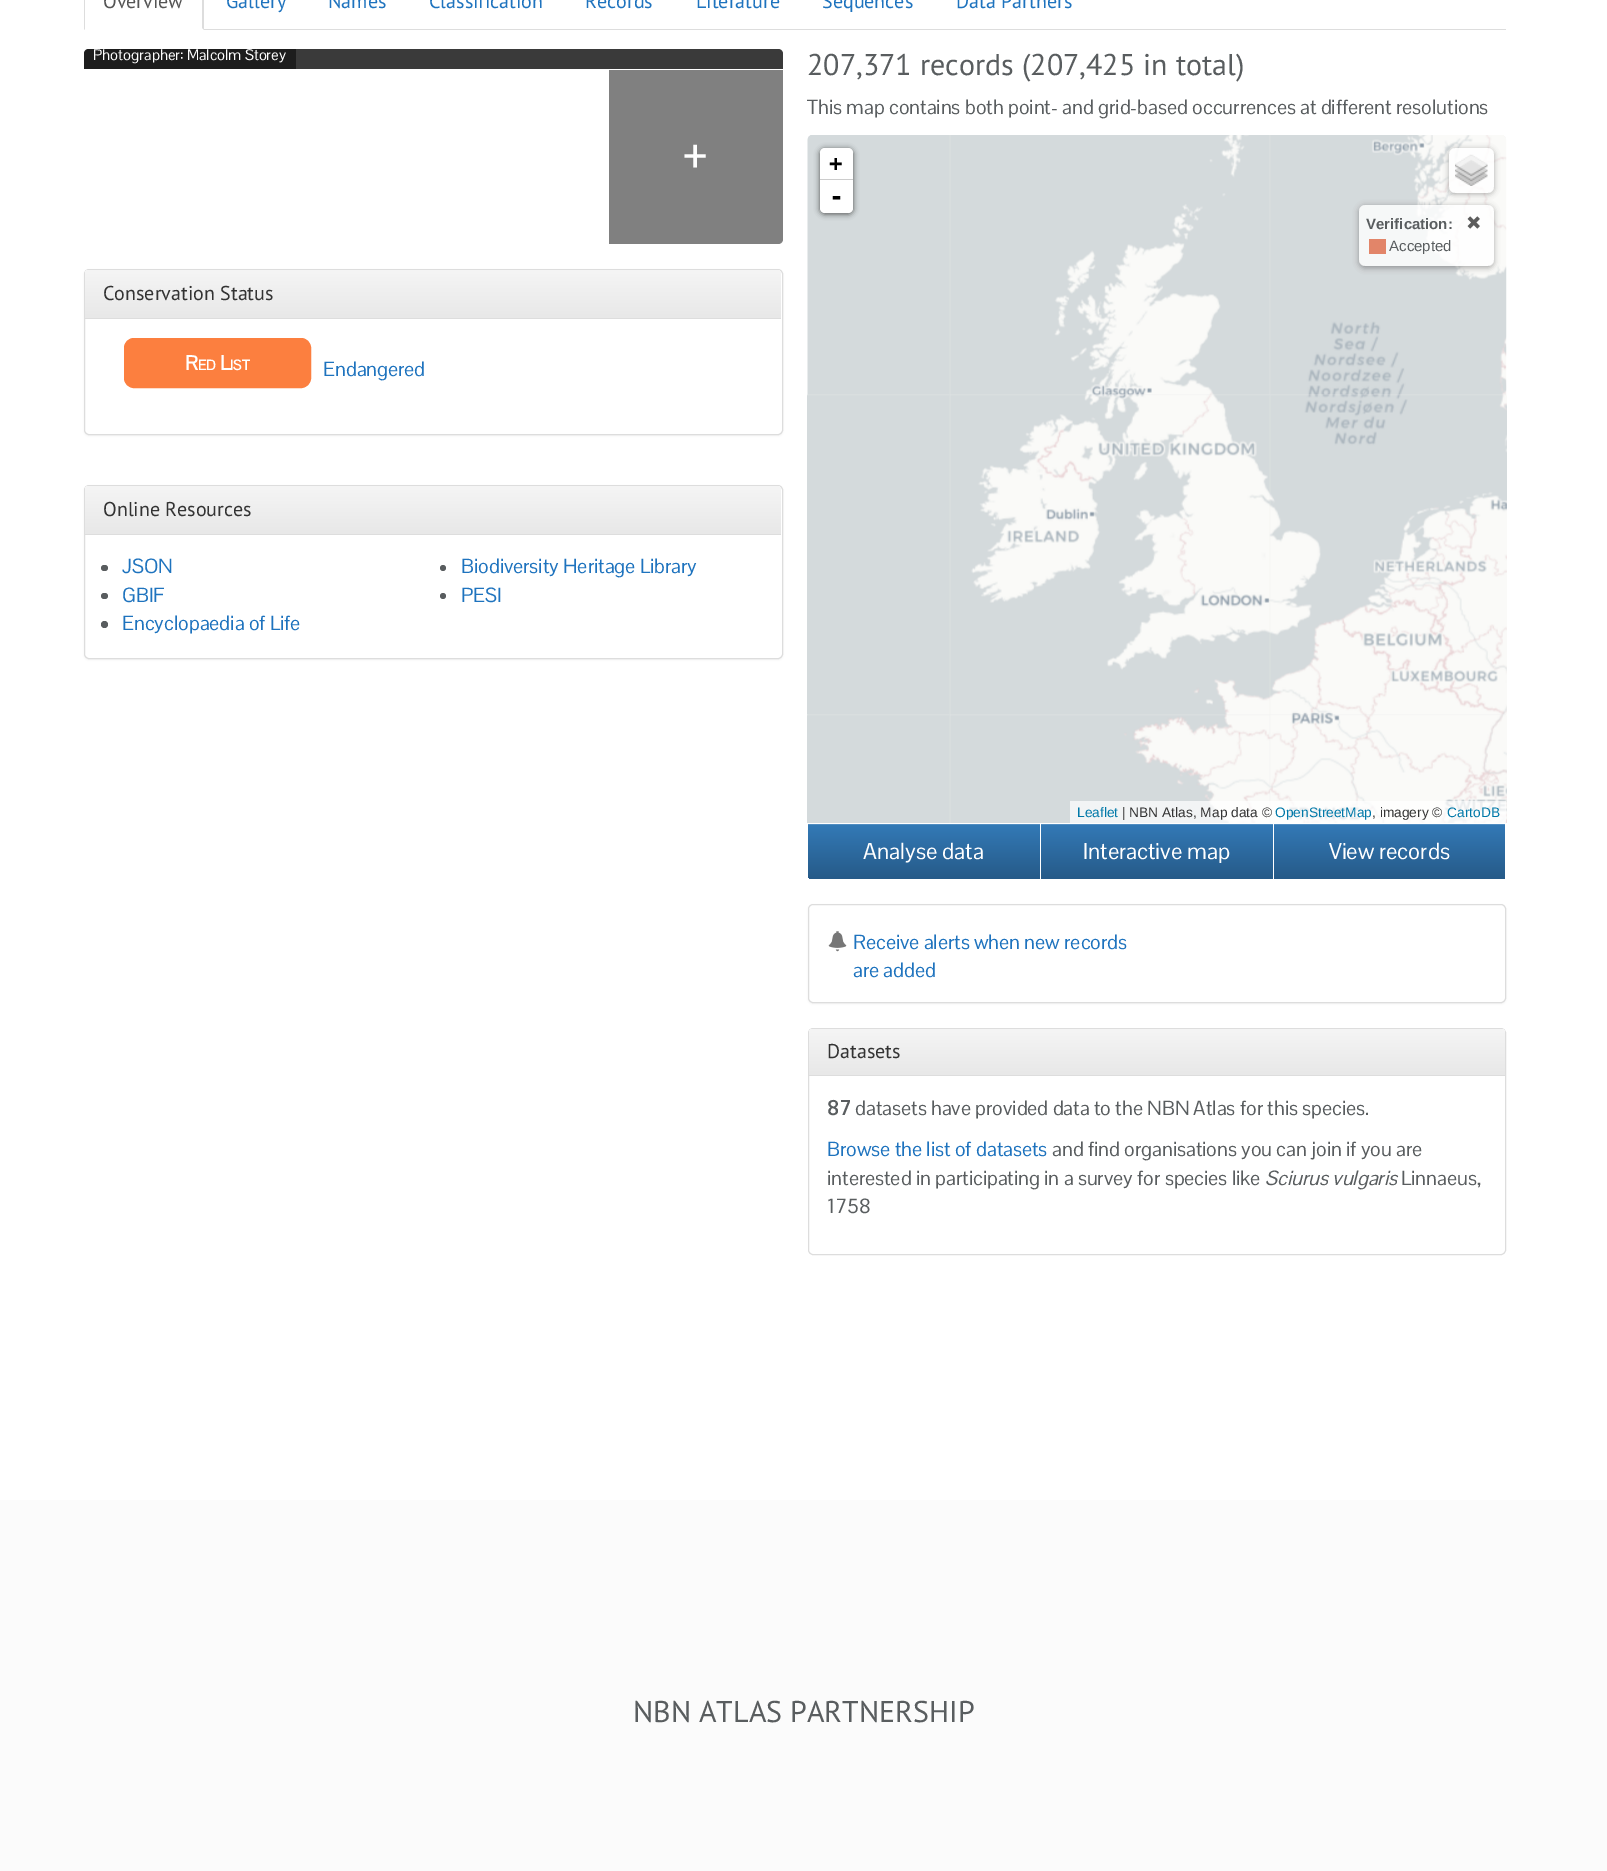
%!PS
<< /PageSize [1607 1871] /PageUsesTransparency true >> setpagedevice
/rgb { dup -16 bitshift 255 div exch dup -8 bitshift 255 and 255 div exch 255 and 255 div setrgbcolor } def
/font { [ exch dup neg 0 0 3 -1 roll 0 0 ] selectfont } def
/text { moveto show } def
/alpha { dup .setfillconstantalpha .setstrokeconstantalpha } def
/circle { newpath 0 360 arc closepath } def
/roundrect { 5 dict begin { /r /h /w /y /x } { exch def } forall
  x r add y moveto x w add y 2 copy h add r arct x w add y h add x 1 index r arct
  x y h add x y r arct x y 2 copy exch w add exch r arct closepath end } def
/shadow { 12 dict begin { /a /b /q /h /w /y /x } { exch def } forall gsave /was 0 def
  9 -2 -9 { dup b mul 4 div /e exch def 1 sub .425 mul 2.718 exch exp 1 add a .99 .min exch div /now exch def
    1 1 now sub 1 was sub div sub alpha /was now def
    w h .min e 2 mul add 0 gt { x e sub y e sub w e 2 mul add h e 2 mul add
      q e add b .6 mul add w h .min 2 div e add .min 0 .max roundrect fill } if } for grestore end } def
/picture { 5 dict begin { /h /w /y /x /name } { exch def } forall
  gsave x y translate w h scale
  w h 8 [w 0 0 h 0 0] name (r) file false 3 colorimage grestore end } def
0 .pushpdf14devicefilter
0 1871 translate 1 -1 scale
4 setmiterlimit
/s1 { /PTSans-Regular 20 font 16#555555 rgb } def
/s2 { /PTSans-Regular 20 font 16#1E73BE rgb } def
/s3 { /PontanoSans-Regular 15 font 16#FFFFFF rgb } def
/s4 { /PontanoSans-Regular 62 font 16#FFFFFF rgb } def
/s5 { /PTSans-Regular 20 font 16#333333 rgb } def
/s6 { /PontanoSans-Bold 20 font 16#FFFFFF rgb } def
/s7 { /PontanoSans-Bold 14 font 16#FFFFFF rgb } def
/s8 { /PontanoSans-Regular 20 font 16#1E73BE rgb } def
/s9 { /PTSans-Regular 30 font 16#595D5F rgb } def
/s10 { /PontanoSans-Regular 20 font 16#595D5F rgb } def
/s11 { /DejaVuSansMono-Bold 22.5 font 16#000000 rgb } def
/s12 { /DejaVuSansMono-Bold 25 font 16#000000 rgb } def
/s13 { /LiberationSans-Bold 15 font 16#595D5F rgb } def
/s14 { /LiberationSans-Regular 15 font 16#595D5F rgb } def
/s15 { /LiberationSans-Regular 13.75 font 16#0078A8 rgb } def
/s16 { /LiberationSans-Regular 13.75 font 16#333333 rgb } def
/s17 { /PontanoSans-Regular 22.5 font 16#FFFFFF rgb } def
/s18 { /PontanoSans-Bold 20 font 16#595D5F rgb } def
/s19 { /PontanoSans-Italic 20 font 16#595D5F rgb } def
16#FFFFFF rgb
0 0 1607 1871 rectfill
16#DDDDDD rgb
204 29 1302 1 rectfill
202 -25 moveto 204 -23 lineto 204 30 lineto 202 28 lineto 202 -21 lineto 201 -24 lineto closepath fill
85 -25 moveto 84 -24 84 -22 84 -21 curveto 84 30 lineto 85 29 lineto 85 -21 lineto 86 -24 lineto closepath fill
s1
(Overview) 103 8 text
s2
(Gallery) 226 8 text
(Names) 328 8 text
(Classification) 429 8 text
(Records) 585 8 text
(Literature) 696 8 text
(Sequences) 822 8 text
(Data Partners) 956 8 text
16#3A3A3A rgb
89 49 moveto 778 49 lineto 781 49 783 51 783 54 curveto 783 69 lineto 84 69 lineto 84 54 lineto 84 51 86 49 89 49 curveto closepath fill
0.5 alpha
16#000000 rgb
89 49 moveto 296 49 lineto 296 69 lineto 84 69 lineto 84 54 lineto 84 51 86 49 89 49 curveto closepath fill
1 alpha
s3
(Photographer: Malcolm Storey) 93 60 text
16#808080 rgb
609 70 moveto 783 70 lineto 783 239 lineto 783 242 781 244 778 244 curveto 609 244 lineto closepath fill
s4
(+) 680 178 text
16#000000 rgb
84 270 699 166 5 1 0.05 shadow
16#FFFFFF rgb
84.5 269.5 698 165 4.5 roundrect gsave fill grestore
16#DDDDDD rgb
stroke
gsave 89 270 moveto 777 270 lineto 779 270 781 272 781 274 curveto 781 318 lineto 85 318 lineto 85 274 lineto 85 272 87 270 89 270 curveto closepath clip newpath
<< /ShadingType 2 /ColorSpace /DeviceRGB /Coords [433 270 433 318] /Extend [true true] /Function << /FunctionType 2 /Domain [0 1] /C0 [0.961 0.961 0.961] /C1 [0.91 0.91 0.91] /N 1 >> >> shfill grestore
85 318 696 1 rectfill
s5
(Conservation Status) 103 300 text
16#FC7F3F rgb
124.5 338.5 186 49 9.5 roundrect gsave fill grestore
stroke
s6
(R) 185 370 text
s7
(ED) 198 370 text
s6
(L) 220 370 text
s7
(IST) 230 370 text
s8
(Endangered) 323 376 text
16#000000 rgb
84 486 699 174 5 1 0.05 shadow
16#FFFFFF rgb
84.5 485.5 698 173 4.5 roundrect gsave fill grestore
16#DDDDDD rgb
stroke
gsave 89 486 moveto 777 486 lineto 779 486 781 488 781 490 curveto 781 534 lineto 85 534 lineto 85 490 lineto 85 488 87 486 89 486 curveto closepath clip newpath
<< /ShadingType 2 /ColorSpace /DeviceRGB /Coords [433 486 433 534] /Extend [true true] /Function << /FunctionType 2 /Domain [0 1] /C0 [0.961 0.961 0.961] /C1 [0.91 0.91 0.91] /N 1 >> >> shfill grestore
85 534 696 1 rectfill
s5
(Online Resources) 103 516 text
16#595D5F rgb
101 565 7 6 3 roundrect fill
s8
(JSON) 122 573 text
16#595D5F rgb
443 568 3 circle fill
s8
(Biodiversity Heritage Library) 461 573 text
16#595D5F rgb
101 593 7 6 3 roundrect fill
s8
(GBIF) 122 602 text
16#595D5F rgb
443 596 3 circle fill
s8
(PESI) 461 602 text
16#595D5F rgb
104.5 624.5 3.5 circle fill
s8
(Encyclopaedia of Life) 122 630 text
s9
(207,371 records \(207,425 in total\)) 807 75 text
s10
(This map contains both point- and grid-based occurrences at different resolutions) 807 114 text
16#EBEBEB rgb
813 135 moveto 1501 135 lineto 1504 135 1506 137 1506 140 curveto 1506 823 lineto 808 823 lineto 808 140 lineto 808 137 810 135 813 135 curveto closepath fill
(pic2.raw) 949 135 322 261 picture
(pic5.raw) 949 394 322 321 picture
(pic1.raw) 807 135 143 261 picture
(pic3.raw) 1270 135 237 261 picture
(pic4.raw) 807 394 143 322 picture
(pic6.raw) 1269 394 238 322 picture
(pic8.raw) 949 714 322 109 picture
(pic7.raw) 807 714 143 109 picture
(pic9.raw) 1270 714 237 109 picture
16#000000 rgb
820 149 33 65 5 3 0.65 shadow
16#FFFFFF rgb
825 148 moveto 848 148 lineto 851 148 853 150 853 153 curveto 853 180 lineto 820 180 lineto 820 153 lineto 820 150 822 148 825 148 curveto closepath fill
16#CCCCCC rgb
820 179 33 1 rectfill
s11
(+) 829 171 text
16#FFFFFF rgb
820 180 moveto 853 180 lineto 853 208 lineto 853 211 851 213 848 213 curveto 825 213 lineto 822 213 820 211 820 208 curveto closepath fill
s12
(-) 829 205 text
gsave
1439 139 moveto 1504 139 lineto 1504 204 lineto 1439 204 lineto closepath 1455 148 moveto 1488 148 lineto 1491.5 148 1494 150.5 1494 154 curveto 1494 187 lineto 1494 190.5 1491.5 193 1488 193 curveto 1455 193 lineto 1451.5 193 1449 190.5 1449 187 curveto 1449 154 lineto 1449 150.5 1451.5 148 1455 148 curveto closepath eoclip newpath
1449 149 45 45 6 3 0.32 shadow
grestore
0.8 alpha
16#FFFFFF rgb
1449 148 45 45 6 roundrect fill
1 alpha
(pic10.raw) 1455 154 33 32 picture
gsave
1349 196 moveto 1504 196 lineto 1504 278 lineto 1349 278 lineto closepath 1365 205 moveto 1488 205 lineto 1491.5 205 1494 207.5 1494 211 curveto 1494 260 lineto 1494 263.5 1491.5 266 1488 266 curveto 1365 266 lineto 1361.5 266 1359 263.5 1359 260 curveto 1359 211 lineto 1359 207.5 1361.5 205 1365 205 curveto closepath eoclip newpath
16#000000 rgb
1359 206 135 62 6 3 0.32 shadow
grestore
0.8 alpha
1359 205 135 61 6 roundrect fill
1 alpha
s13
(Verification:) 1366 229 text
16#E28569 rgb
1369 239 17 15 rectfill
s14
(Accepted) 1389 251 text
(pic11.raw) 1467 216 13 13 picture
0.7 alpha
16#FFFFFF rgb
1070 801 436 22 rectfill
1 alpha
s15
(Leaflet) 1077 817 text
s16
(| NBN Atlas, Map data ©) 1122 817 text
s15
(OpenStreetMap) 1275 817 text
s16
(, imagery ©) 1372 817 text
s15
(CartoDB) 1447 817 text
gsave 808 824 moveto 1040 824 lineto 1040 879 lineto 813 879 lineto 810 879 808 877 808 874 curveto closepath clip newpath
<< /ShadingType 2 /ColorSpace /DeviceRGB /Coords [924 824 924 879] /Extend [true true] /Function << /FunctionType 2 /Domain [0 1] /C0 [0.2 0.478 0.718] /C1 [0.149 0.353 0.533] /N 1 >> >> shfill grestore
16#528EC2 rgb
808 824 232 1 rectfill
s17
(Analyse data) 863 859 text
gsave 1041 825 moveto 1273 825 lineto 1273 879 lineto 1041 879 lineto closepath clip newpath
<< /ShadingType 2 /ColorSpace /DeviceRGB /Coords [1157 824 1157 879] /Extend [true true] /Function << /FunctionType 2 /Domain [0 1] /C0 [0.2 0.478 0.718] /C1 [0.149 0.353 0.533] /N 1 >> >> shfill grestore
16#528EC2 rgb
1041 824 232 1 rectfill
s17
(Interactive map) 1083 859 text
gsave
808 824 moveto 1506 824 lineto 1506 874 lineto 1506 877 1504 879 1501 879 curveto 813 879 lineto 810 879 808 877 808 874 curveto closepath clip newpath
gsave 1274 825 moveto 1505 825 lineto 1505 879 lineto 1274 879 lineto closepath clip newpath
<< /ShadingType 2 /ColorSpace /DeviceRGB /Coords [1389 824 1389 879] /Extend [true true] /Function << /FunctionType 2 /Domain [0 1] /C0 [0.2 0.478 0.718] /C1 [0.149 0.353 0.533] /N 1 >> >> shfill grestore
grestore
16#528EC2 rgb
1274 824 231 1 rectfill
16#FFFFFF rgb
1273 824 1 55 rectfill
(View records) 1329 859 text
16#000000 rgb
808 905 698 99 5 1 0.05 shadow
16#FFFFFF rgb
808.5 904.5 697 98 4.5 roundrect gsave fill grestore
16#DDDDDD rgb
stroke
(pic12.raw) 828 931 19 21 picture
s8
(Receive alerts when new records) 853 949 text
(are added) 853 977 text
16#DDDDDD rgb
808.5 1028.5 697 226 4.5 roundrect stroke
gsave 813 1029 moveto 1501 1029 lineto 1503 1029 1505 1031 1505 1033 curveto 1505 1075 lineto 809 1075 lineto 809 1033 lineto 809 1031 811 1029 813 1029 curveto closepath clip newpath
<< /ShadingType 2 /ColorSpace /DeviceRGB /Coords [1157 1029 1157 1075] /Extend [true true] /Function << /FunctionType 2 /Domain [0 1] /C0 [0.961 0.961 0.961] /C1 [0.91 0.91 0.91] /N 1 >> >> shfill grestore
809 1075 696 1 rectfill
s5
(Datasets) 827 1058 text
s18
(87) 827 1115 text
s10
(datasets have provided data to the NBN Atlas for this species.) 855 1115 text
s8
(Browse the list of datasets) 827 1156 text
s10
(and find organisations you can join if you are) 1052 1156 text
(interested in participating in a survey for species like) 827 1185 text
s19
(Sciurus vulgaris) 1265 1185 text
s10
(Linnaeus,) 1401 1185 text
(1758) 827 1213 text
16#FBFBFB rgb
0 1500 1607 371 rectfill
s9
(NBN ATLAS PARTNERSHIP) 633 1722 text
.poppdf14devicefilter showpage
